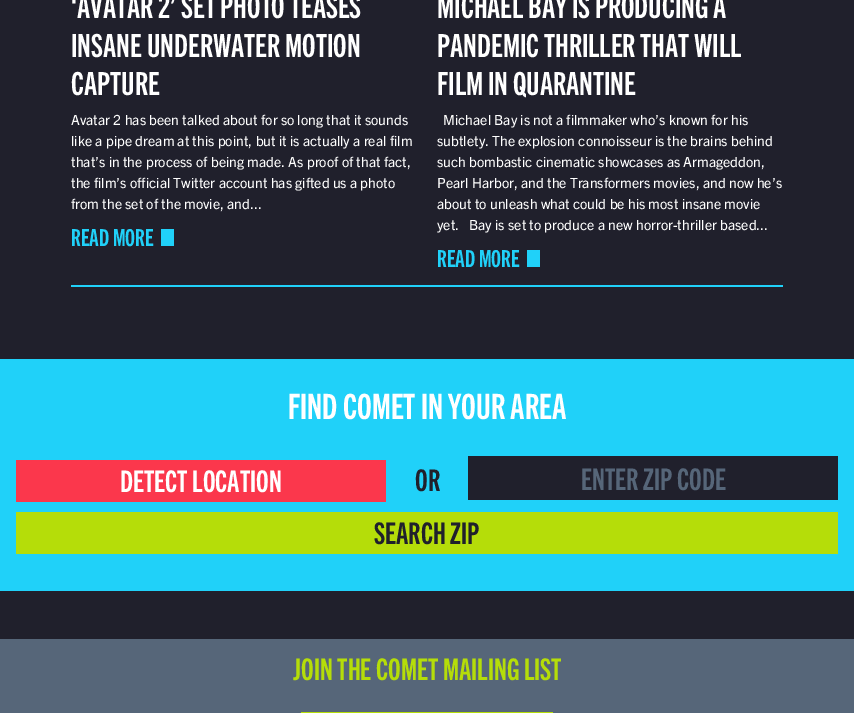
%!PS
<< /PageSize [854 713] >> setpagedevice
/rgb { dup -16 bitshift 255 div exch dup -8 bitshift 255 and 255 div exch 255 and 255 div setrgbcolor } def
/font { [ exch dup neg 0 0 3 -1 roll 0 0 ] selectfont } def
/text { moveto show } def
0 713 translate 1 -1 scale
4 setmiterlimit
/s1 { /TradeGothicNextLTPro-Bold 32 font 16#FFFFFF rgb } def
/s2 { /TradeGothicNextLTPro-Regular 14 font 16#FFFFFF rgb } def
/s3 { /TradeGothicNextLTPro-Bold 23.5 font 16#20D1F9 rgb } def
/s4 { /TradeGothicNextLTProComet-Bold 35 font 16#FFFFFF rgb } def
/s5 { /TradeGothicNextLTPro-Bold 30 font 16#FFFFFF rgb } def
/s6 { /TradeGothicNextLTPro-Bold 30 font 16#20202C rgb } def
/s7 { /TradeGothicNextLTPro-Bold 30 font 16#566679 rgb } def
/s8 { /TradeGothicNextLTProComet-Bold 30 font 16#B5DD09 rgb } def
16#20202C rgb
0 0 854 713 rectfill
s1
(‘AVATAR 2’ SET PHOTO TEASES) 71 18 text
(INSANE UNDERWATER MOTION) 71 57 text
(CAPTURE) 71 95 text
s2
(Avatar 2 has been talked about for so long that it sounds) 71 125 text
(like a pipe dream at this point, but it is actually a real film) 71 146 text
(that’s in the process of being made. As proof of that fact,) 71 167 text
(the film’s official Twitter account has gifted us a photo) 71 188 text
(from the set of the movie, and...) 71 209 text
s3
(READ MORE) 71 246 text
161 229 13 17 rectfill
s1
(MICHAEL BAY IS PRODUCING A) 437 18 text
(PANDEMIC THRILLER THAT WILL) 437 57 text
(FILM IN QUARANTINE) 437 95 text
s2
(Michael Bay is not a filmmaker who’s known for his) 443 125 text
(subtlety. The explosion connoisseur is the brains behind) 437 146 text
(such bombastic cinematic showcases as Armageddon,) 437 167 text
(Pearl Harbor, and the Transformers movies, and now he’s) 437 188 text
(about to unleash what could be his most insane movie) 437 209 text
(yet.   Bay is set to produce a new horror-thriller based...) 437 230 text
s3
(READ MORE) 437 267 text
527 250 13 17 rectfill
71 285 712 2 rectfill
0 359 854 232 rectfill
s4
(FIND COMET IN YOUR AREA) 288 419 text
16#FB374C rgb
16 460 370 42 rectfill
s5
(DETECT LOCATION) 120 492 text
s6
(OR) 415 491 text
468 456 370 44 rectfill
s7
(ENTER ZIP CODE) 581 490 text
16#B5DD09 rgb
16 512 822 42 rectfill
s6
(SEARCH ZIP) 374 544 text
16#566679 rgb
0 639 854 74 rectfill
s8
(JOIN THE COMET MAILING LIST) 293 680 text
301 712 252 1 rectfill
showpage
